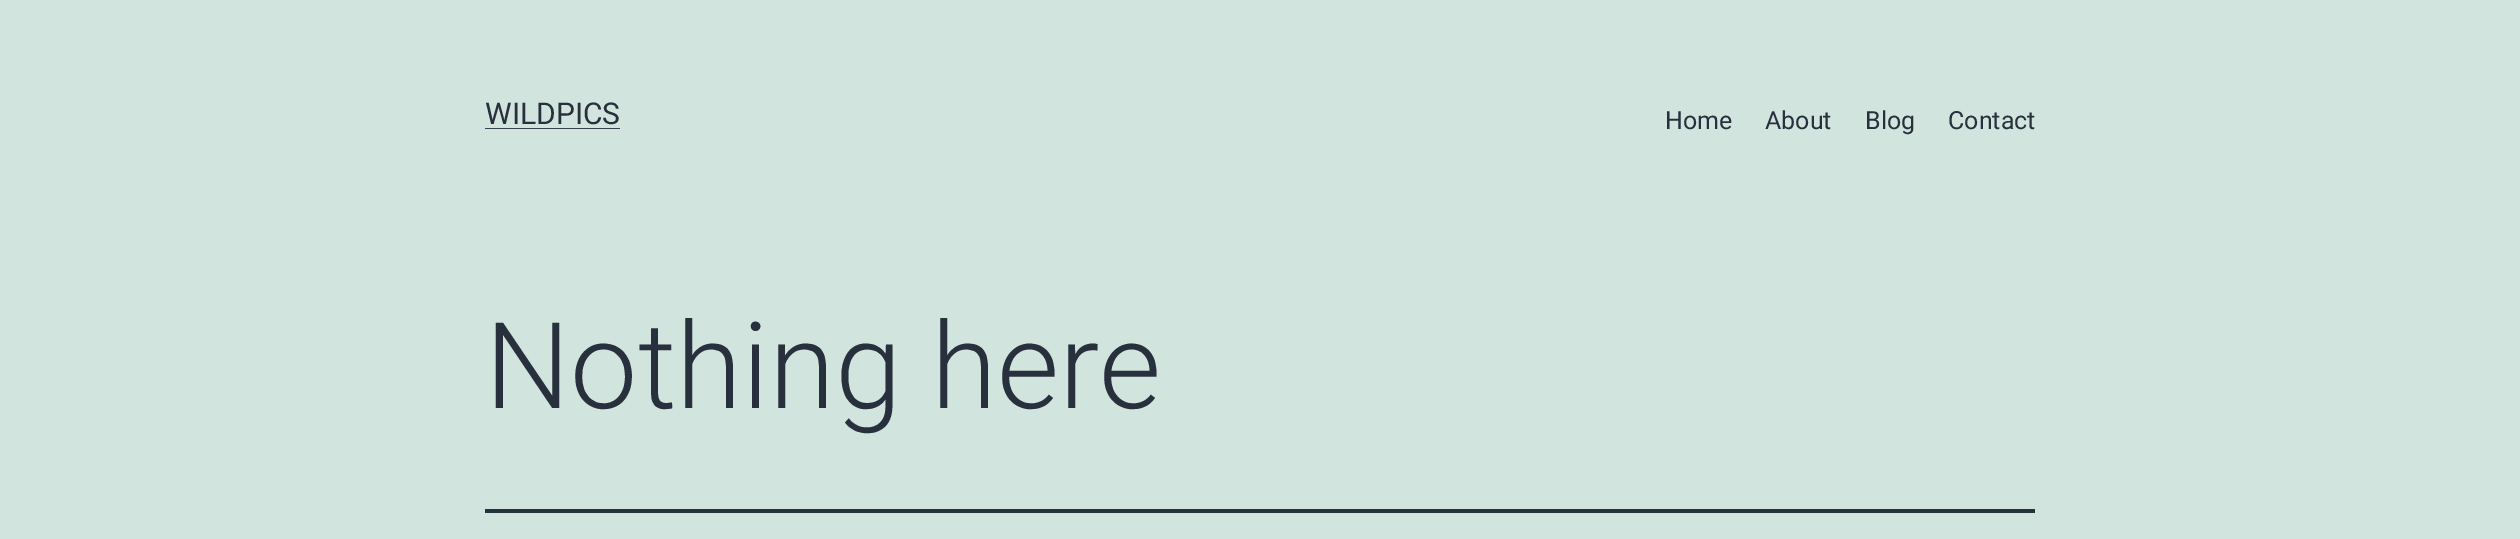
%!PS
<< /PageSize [2520 539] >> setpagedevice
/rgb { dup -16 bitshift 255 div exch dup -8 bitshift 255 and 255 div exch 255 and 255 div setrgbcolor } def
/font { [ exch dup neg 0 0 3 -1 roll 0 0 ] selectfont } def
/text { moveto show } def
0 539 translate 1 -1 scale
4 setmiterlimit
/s1 { /Roboto-Regular 30 font 16#28303D rgb } def
/s2 { /Roboto-Regular 25 font 16#28303D rgb } def
/s3 { /Roboto-Light 120 font 16#28303D rgb } def
16#D1E4DD rgb
0 0 2520 539 rectfill
s1
(WILDPICS) 485 124 text
16#39414D rgb
485 128 135 1 rectfill
s2
(Home) 1665 129 text
(About) 1765 129 text
(Blog) 1865 129 text
(Contact) 1948 129 text
485 509 1550 4 rectfill
s3
(Nothing here) 485 408 text
showpage
